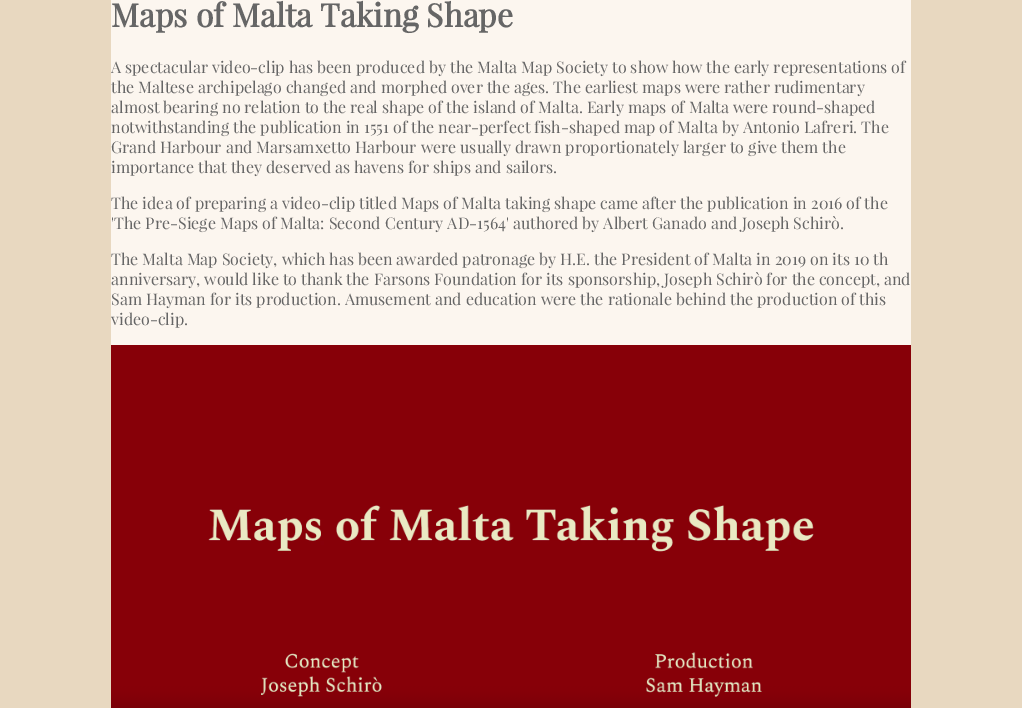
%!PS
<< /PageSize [1022 708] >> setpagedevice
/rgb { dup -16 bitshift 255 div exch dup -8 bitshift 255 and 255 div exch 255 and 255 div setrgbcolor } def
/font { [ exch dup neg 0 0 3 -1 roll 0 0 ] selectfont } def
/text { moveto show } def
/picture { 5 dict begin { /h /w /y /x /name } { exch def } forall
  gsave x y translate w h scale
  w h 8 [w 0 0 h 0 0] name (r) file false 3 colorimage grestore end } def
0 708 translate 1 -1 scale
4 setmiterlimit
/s1 { /PlayfairDisplay-Bold 32 font 16#666666 rgb } def
/s2 { /PlayfairDisplay-Regular 16 font 16#666666 rgb } def
16#E8D8C0 rgb
0 0 1022 708 rectfill
16#FCF6EF rgb
111 0 800 345 rectfill
s1
(Maps of Malta Taking Shape) 111 27 text
s2
(A spectacular video-clip has been produced by the Malta Map Society to show how the early representations of) 111 73 text
(the Maltese archipelago changed and morphed over the ages. The earliest maps were rather rudimentary) 111 93 text
(almost bearing no relation to the real shape of the island of Malta. Early maps of Malta were round-shaped) 111 113 text
(notwithstanding the publication in 1551 of the near-perfect fish-shaped map of Malta by Antonio Lafreri. The) 111 133 text
(Grand Harbour and Marsamxetto Harbour were usually drawn proportionately larger to give them the) 111 153 text
(importance that they deserved as havens for ships and sailors.) 111 173 text
(The idea of preparing a video-clip titled Maps of Malta taking shape came after the publication in 2016 of the) 111 209 text
('The Pre-Siege Maps of Malta: Second Century AD-1564' authored by Albert Ganado and Joseph Schirò.) 111 229 text
(The Malta Map Society, which has been awarded patronage by H.E. the President of Malta in 2019 on its 10 th) 111 265 text
(anniversary, would like to thank the Farsons Foundation for its sponsorship, Joseph Schirò for the concept, and) 111 285 text
(Sam Hayman for its production. Amusement and education were the rationale behind the production of this) 111 305 text
(video-clip.) 111 325 text
(pic1.raw) 111 345 800 363 picture
showpage
